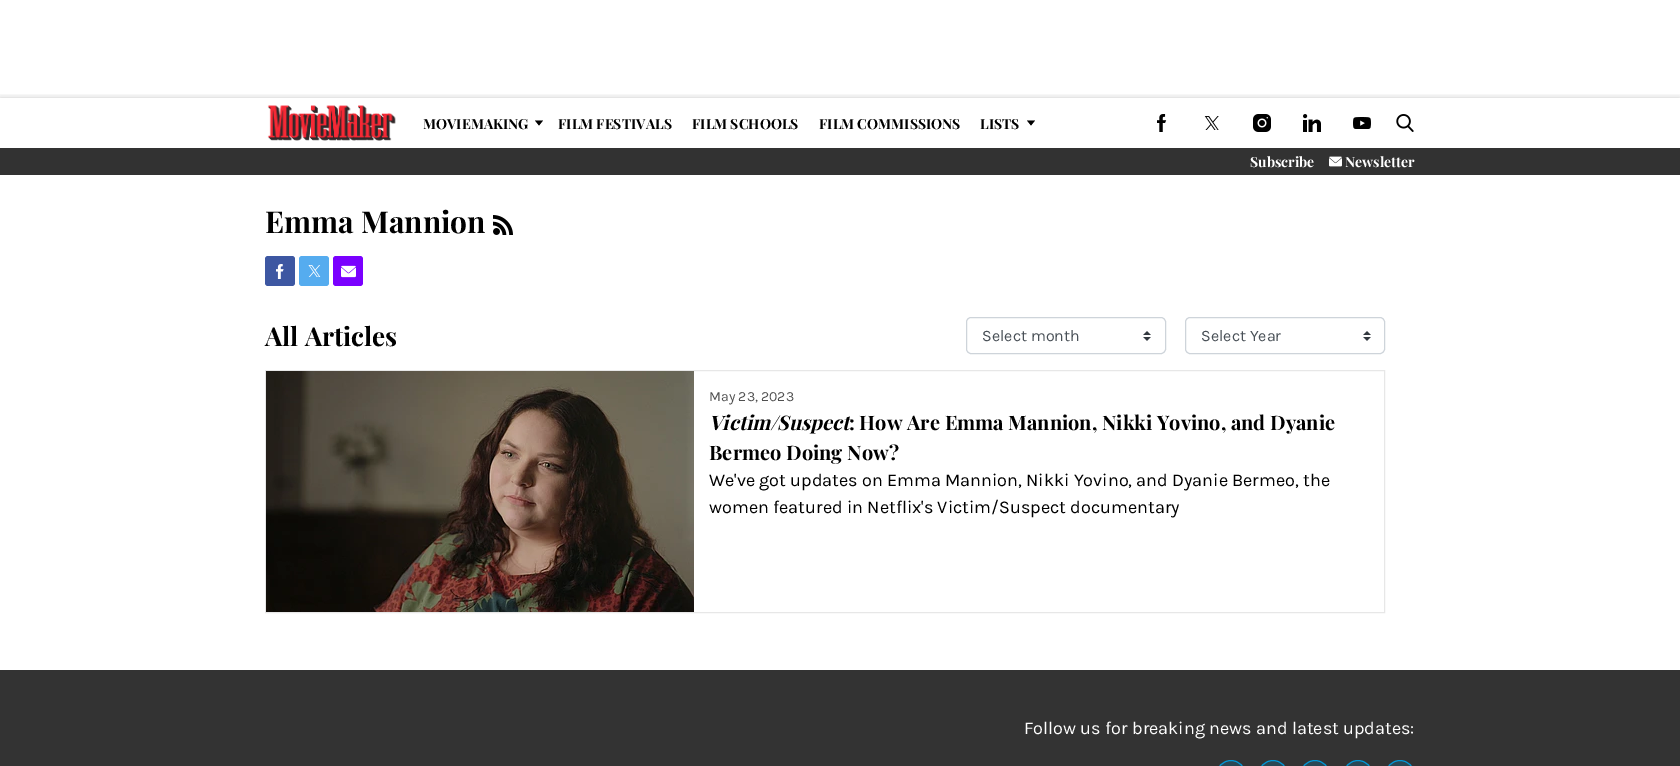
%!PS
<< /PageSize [1680 766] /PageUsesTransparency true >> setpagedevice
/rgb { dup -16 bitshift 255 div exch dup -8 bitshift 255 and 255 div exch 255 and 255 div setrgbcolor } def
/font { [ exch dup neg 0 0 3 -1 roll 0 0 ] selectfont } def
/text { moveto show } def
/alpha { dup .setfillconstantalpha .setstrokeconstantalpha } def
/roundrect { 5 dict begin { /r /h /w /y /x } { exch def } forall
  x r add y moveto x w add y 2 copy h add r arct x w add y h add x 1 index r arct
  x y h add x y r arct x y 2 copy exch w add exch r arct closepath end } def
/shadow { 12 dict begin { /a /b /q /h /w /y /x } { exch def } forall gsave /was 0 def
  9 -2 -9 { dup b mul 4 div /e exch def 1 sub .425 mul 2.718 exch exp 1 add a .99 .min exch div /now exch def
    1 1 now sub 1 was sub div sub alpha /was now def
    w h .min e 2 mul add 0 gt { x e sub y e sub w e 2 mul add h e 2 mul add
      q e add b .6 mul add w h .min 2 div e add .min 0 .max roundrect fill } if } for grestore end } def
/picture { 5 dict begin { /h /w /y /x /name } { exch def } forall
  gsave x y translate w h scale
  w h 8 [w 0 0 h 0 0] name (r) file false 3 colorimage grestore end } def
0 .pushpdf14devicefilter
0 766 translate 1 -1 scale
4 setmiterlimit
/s1 { /PlayfairDisplay-Bold 14 font 16#000000 rgb } def
/s2 { /PlayfairDisplay-Bold 14 font 16#FFFFFF rgb } def
/s3 { /PlayfairDisplay-Bold 30 font 16#000000 rgb } def
/s4 { /PlayfairDisplay-Bold 26 font 16#000000 rgb } def
/s5 { /Karla-Regular 16 font 16#495057 rgb } def
/s6 { /Karla-Regular 14 font 16#505050 rgb } def
/s7 { /PlayfairDisplay-BoldItalic 20 font 16#000000 rgb } def
/s8 { /PlayfairDisplay-Bold 20 font 16#000000 rgb } def
/s9 { /Karla-Regular 18 font 16#000000 rgb } def
/s10 { /Karla-Regular 18 font 16#FFFFFF rgb } def
16#FFFFFF rgb
0 0 1680 766 rectfill
gsave
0 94 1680 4 rectclip
16#000000 rgb
0 98 1680 50 0 3.5 0.2 shadow
grestore
(pic1.raw) 267 105 129 36 picture
s1
(MOVIEMAKING) 423 129 text
535 120.5 moveto 543 120.5 lineto 539 125.5 lineto closepath fill
(FILM FESTIVALS) 558 129 text
(FILM SCHOOLS) 692 129 text
(FILM COMMISSIONS) 819 129 text
(LISTS) 980 129 text
1027 120.5 moveto 1035 120.5 lineto 1031 125.5 lineto closepath fill
(pic2.raw) 1157 114 10 18 picture
(pic3.raw) 1204 116 15 14 picture
(pic4.raw) 1253 114 18 18 picture
(pic5.raw) 1303 114 18 18 picture
(pic6.raw) 1353 117 18 12 picture
(pic7.raw) 1396 114 18 18 picture
16#323232 rgb
0 148 1680 27 rectfill
s2
(Subscribe) 1250 167 text
(pic8.raw) 1329 156 13 11 picture
(Newsletter) 1345 167 text
s3
(Emma Mannion) 265 233 text
(pic9.raw) 493 215 20 20 picture
16#3D57A2 rgb
265 256 30 30 3 roundrect fill
(pic10.raw) 276 264 8 15 picture
16#55ACEF rgb
299 256 30 30 3 roundrect fill
(pic11.raw) 308 265 13 12 picture
16#7A00FF rgb
333 256 30 30 3 roundrect fill
(pic12.raw) 341 265 15 13 picture
s4
(All Articles) 265 346 text
(pic13.raw) 1143 331 8 10 picture
16#CED4DA rgb
966.5 317.5 199 36 4.5 roundrect stroke
s5
(Select month) 982 341 text
(pic13.raw) 1363 331 8 10 picture
16#CED4DA rgb
1185.5 317.5 199 36 4.5 roundrect stroke
s5
(Select Year) 1201 341 text
16#E7E7E7 rgb
265.5 370.5 1119 242 rectstroke
(pic14.raw) 266 371 428 241 picture
s6
(May 23, 2023) 709 401 text
s7
(Victim/Suspect) 709 430 text
s8
(: How Are Emma Mannion, Nikki Yovino, and Dyanie) 849 430 text
(Bermeo Doing Now?) 709 460 text
s9
(We've got updates on Emma Mannion, Nikki Yovino, and Dyanie Bermeo, the) 709 486 text
(women featured in Netflix's Victim/Suspect documentary) 709 513 text
16#333333 rgb
0 670 1680 96 rectfill
s10
(Follow us for breaking news and latest updates:) 1024 734 text
16#2A4855 rgb
1216.5 760.5 29 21 14.5 roundrect gsave fill grestore
16#0196D6 rgb
stroke
16#2A4855 rgb
1258.5 760.5 29 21 14.5 roundrect gsave fill grestore
16#0196D6 rgb
stroke
16#2A4855 rgb
1300.5 760.5 29 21 14.5 roundrect gsave fill grestore
16#0196D6 rgb
stroke
16#2A4855 rgb
1343.5 760.5 29 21 14.5 roundrect gsave fill grestore
16#0196D6 rgb
stroke
16#2A4855 rgb
1385.5 760.5 29 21 14.5 roundrect gsave fill grestore
16#0196D6 rgb
stroke
.poppdf14devicefilter showpage
